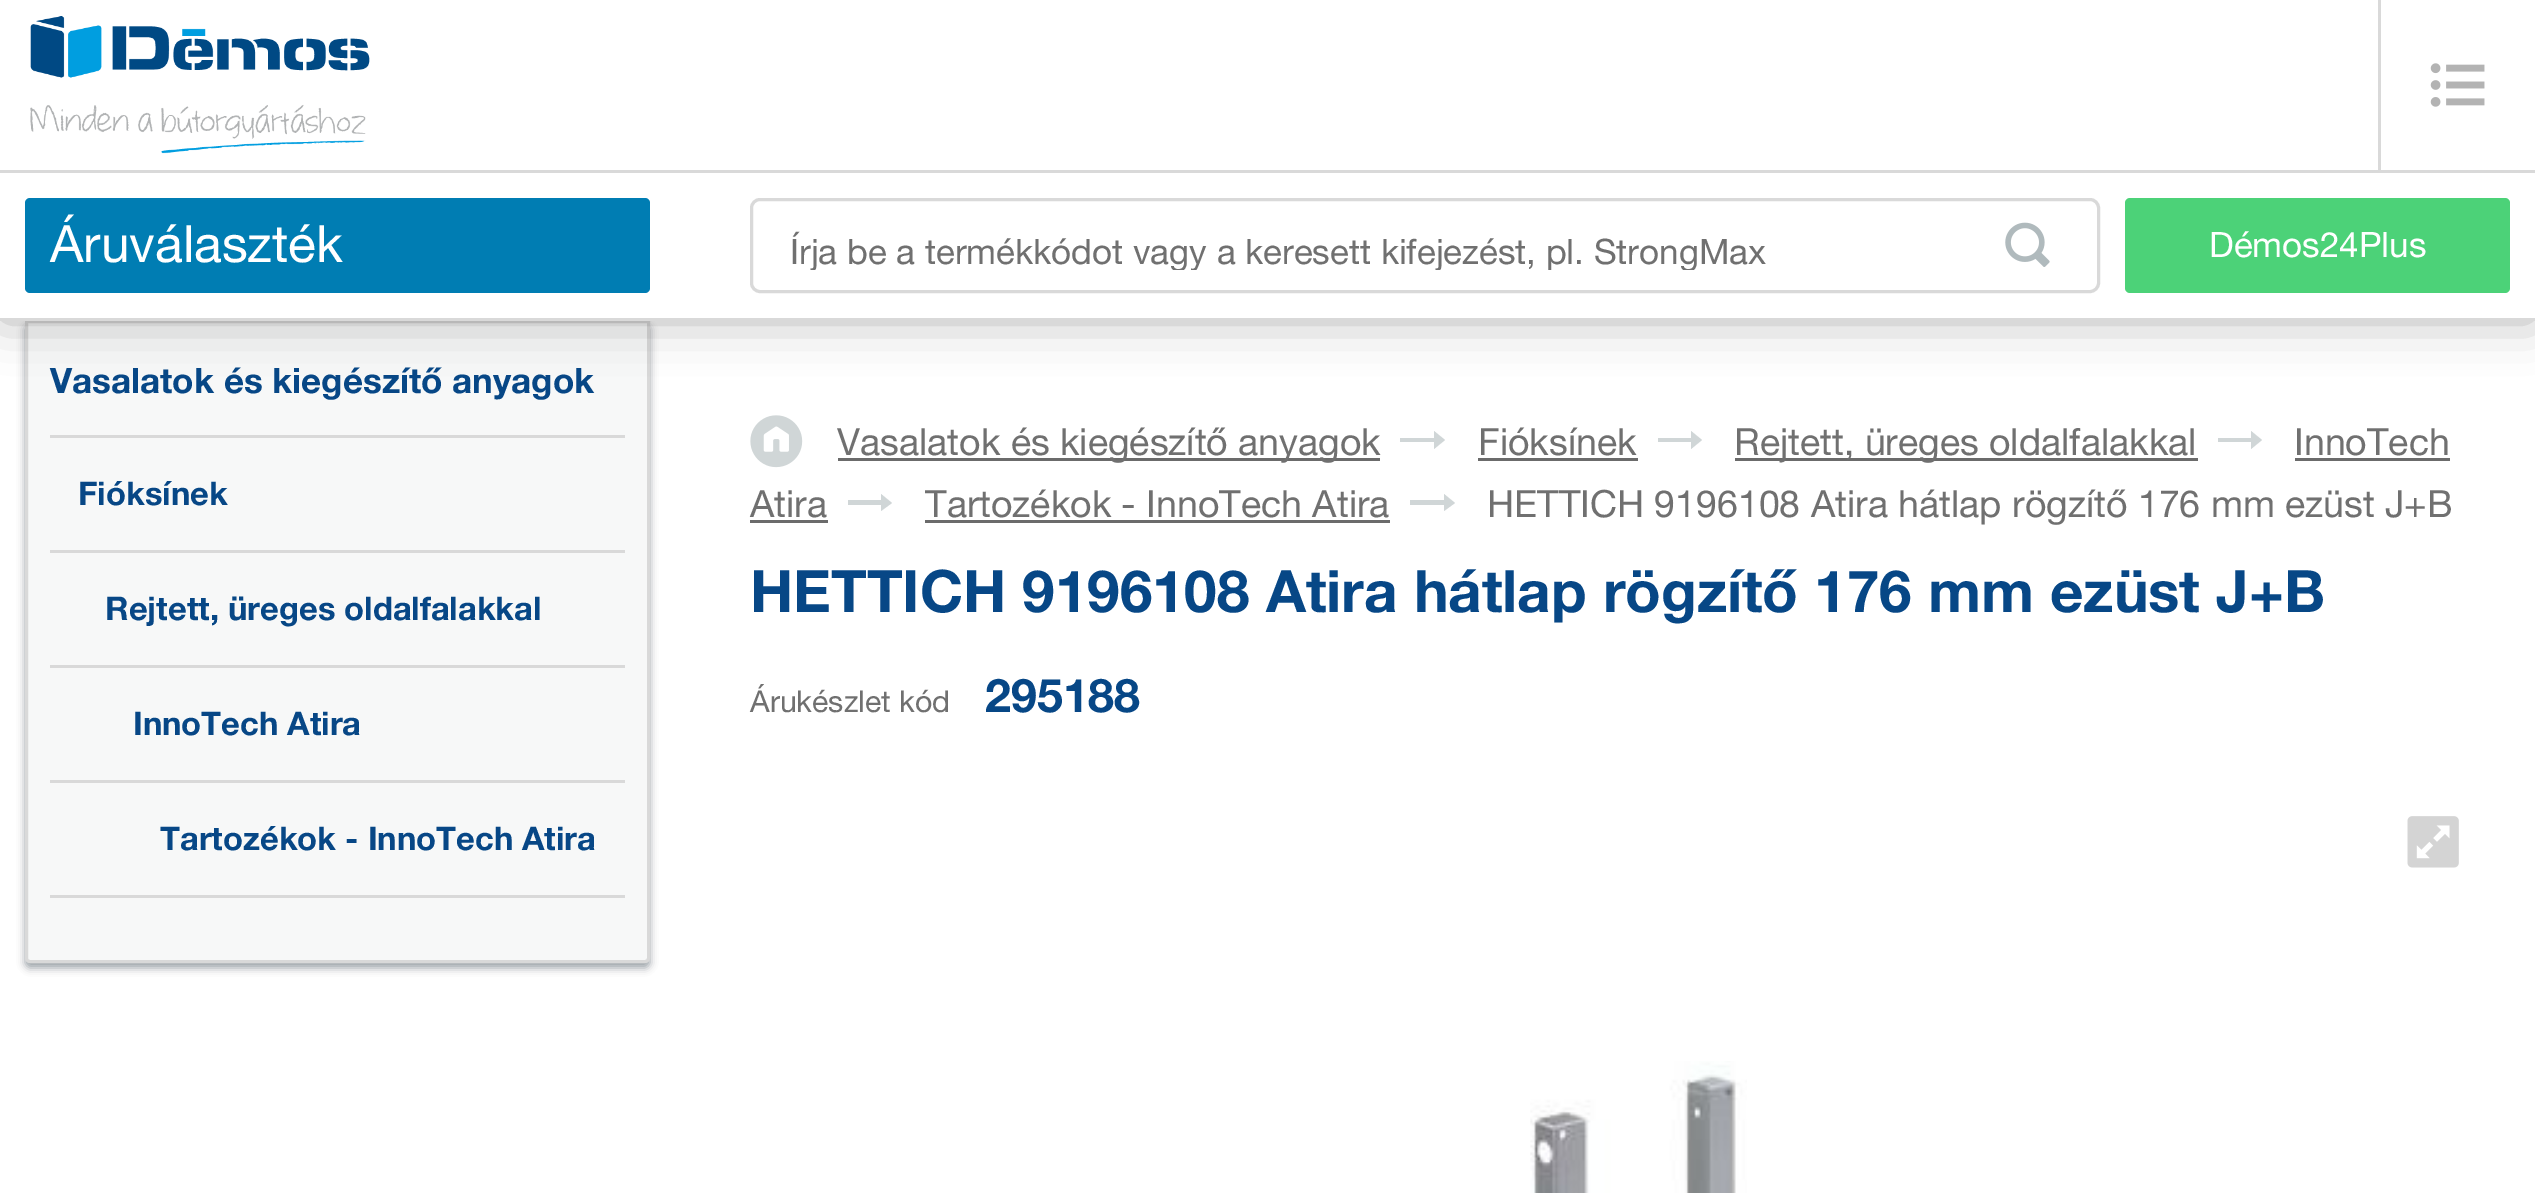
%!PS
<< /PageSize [2535 1193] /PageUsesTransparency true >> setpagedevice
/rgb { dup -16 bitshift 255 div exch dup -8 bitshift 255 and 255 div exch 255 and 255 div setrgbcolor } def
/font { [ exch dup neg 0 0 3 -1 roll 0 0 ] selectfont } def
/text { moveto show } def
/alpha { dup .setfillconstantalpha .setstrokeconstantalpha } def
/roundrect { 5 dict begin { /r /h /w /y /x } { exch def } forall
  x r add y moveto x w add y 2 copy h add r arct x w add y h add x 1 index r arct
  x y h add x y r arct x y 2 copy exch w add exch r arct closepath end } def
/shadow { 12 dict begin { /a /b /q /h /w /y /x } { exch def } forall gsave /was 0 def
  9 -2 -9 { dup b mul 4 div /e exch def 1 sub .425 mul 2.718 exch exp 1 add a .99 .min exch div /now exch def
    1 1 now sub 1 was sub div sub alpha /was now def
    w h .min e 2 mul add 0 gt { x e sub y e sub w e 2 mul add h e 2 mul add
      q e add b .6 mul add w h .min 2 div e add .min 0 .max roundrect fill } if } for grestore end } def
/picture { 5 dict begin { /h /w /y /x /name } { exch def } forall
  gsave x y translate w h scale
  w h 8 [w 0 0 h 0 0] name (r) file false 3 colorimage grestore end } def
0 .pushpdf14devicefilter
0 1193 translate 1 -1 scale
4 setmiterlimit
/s1 { /HelveticaNeue-Regular 51.5 font 16#FFFFFF rgb } def
/s2 { /HelveticaNeue-Regular 35 font 16#707070 rgb } def
/s3 { /HelveticaNeue-Regular 35 font 16#FFFFFF rgb } def
/s4 { /HelveticaNeue-Bold 35 font 16#074786 rgb } def
/s5 { /HelveticaNeue-Bold 32.7 font 16#074786 rgb } def
/s6 { /HelveticaNeue-Regular 37.5 font 16#707070 rgb } def
/s7 { /HelveticaNeue-Bold 58.35 font 16#074786 rgb } def
/s8 { /HelveticaNeue-Regular 30.25 font 16#707070 rgb } def
/s9 { /HelveticaNeue-Bold 46.5 font 16#074786 rgb } def
16#FFFFFF rgb
0 0 2535 1193 rectfill
16#69777C rgb
25 325 625 643 5 4 0.66 shadow
16#F7F8F8 rgb
26.5 321.5 moveto 648.5 321.5 lineto 648.5 958 lineto 648.5 960 647 961.5 645 961.5 curveto 30 961.5 lineto 28 961.5 26.5 960 26.5 958 curveto closepath gsave fill grestore
16#D9D9D9 rgb
3 setlinewidth
stroke
16#000000 rgb
0 0 2535 320 0 25 0.3 shadow
16#FFFFFF rgb
0 0 2535 318 rectfill
16#D9D9D9 rgb
0 318 2535 3 rectfill
0 170 2535 3 rectfill
16#007DB3 rgb
25 198 625 95 5 roundrect fill
s1
(Áruválaszték) 50 262 text
(pic1.raw) 30 16 340 138 picture
16#D9D9D9 rgb
2378 0 3 170 rectfill
(pic2.raw) 2430 63 55 44 picture
751.5 199.5 1347 92 8.5 roundrect stroke
gsave
790 228 1148 42 rectclip
s2
(Írja be a termékkódot vagy a keresett kifejezést, pl. StrongMax) 790 264 text
grestore
(pic3.raw) 2005 222 45 45 picture
16#4CD278 rgb
2125 198 385 95 5 roundrect fill
s3
(Démos24Plus) 2209 257 text
s4
(Vasalatok és kiegészítő anyagok) 50 393 text
16#D9D9D9 rgb
50 435 575 3 rectfill
s5
(Fióksínek) 78 505 text
16#D9D9D9 rgb
50 550 575 3 rectfill
s5
(Rejtett, üreges oldalfalakkal) 105 620 text
16#D9D9D9 rgb
50 665 575 3 rectfill
s5
(InnoTech Atira) 133 735 text
16#D9D9D9 rgb
50 780 575 3 rectfill
s5
(Tartozékok - InnoTech Atira) 160 850 text
16#D9D9D9 rgb
50 895 575 3 rectfill
(pic4.raw) 750 415 53 53 picture
16#6B6B6B rgb
838 458 542 3 rectfill
s6
(Vasalatok és kiegészítő anyagok) 837 455 text
16#D0D6D7 rgb
1400 438 moveto 1400 442 lineto 1434 442 lineto 1434 449 lineto 1445 440 lineto 1434 431 lineto 1434 438 lineto closepath fill
s6
(Fióksínek) 1478 455 text
16#6B6B6B rgb
1478 458 160 3 rectfill
16#D0D6D7 rgb
1658 438 moveto 1658 442 lineto 1691 442 lineto 1691 449 lineto 1702 440 lineto 1691 431 lineto 1691 438 lineto closepath fill
16#6B6B6B rgb
1735 458 463 3 rectfill
s6
(Rejtett, üreges oldalfalakkal) 1734 455 text
16#D0D6D7 rgb
2218 438 moveto 2218 442 lineto 2251 442 lineto 2251 449 lineto 2262 440 lineto 2251 431 lineto 2251 438 lineto closepath fill
s6
(InnoTech) 2294 455 text
16#6B6B6B rgb
2295 458 155 3 rectfill
s6
(Atira) 750 517 text
16#6B6B6B rgb
750 520 78 3 rectfill
16#D0D6D7 rgb
848 500 moveto 848 505 lineto 881 505 lineto 881 511 lineto 892 503 lineto 881 494 lineto 881 500 lineto closepath fill
s6
(Tartozékok - InnoTech Atira) 925 517 text
16#6B6B6B rgb
925 520 465 3 rectfill
16#D0D6D7 rgb
1410 500 moveto 1410 505 lineto 1444 505 lineto 1444 511 lineto 1455 503 lineto 1444 494 lineto 1444 500 lineto closepath fill
s6
(HETTICH 9196108 Atira hátlap rögzítő 176 mm ezüst J+B) 1487 517 text
s7
(HETTICH 9196108 Atira hátlap rögzítő 176 mm ezüst J+B) 750 612 text
s8
(Árukészlet kód) 750 712 text
s9
(295188) 985 712 text
(pic5.raw) 2407 816 52 52 picture
(pic6.raw) 1530 1061 217 132 picture
.poppdf14devicefilter showpage
